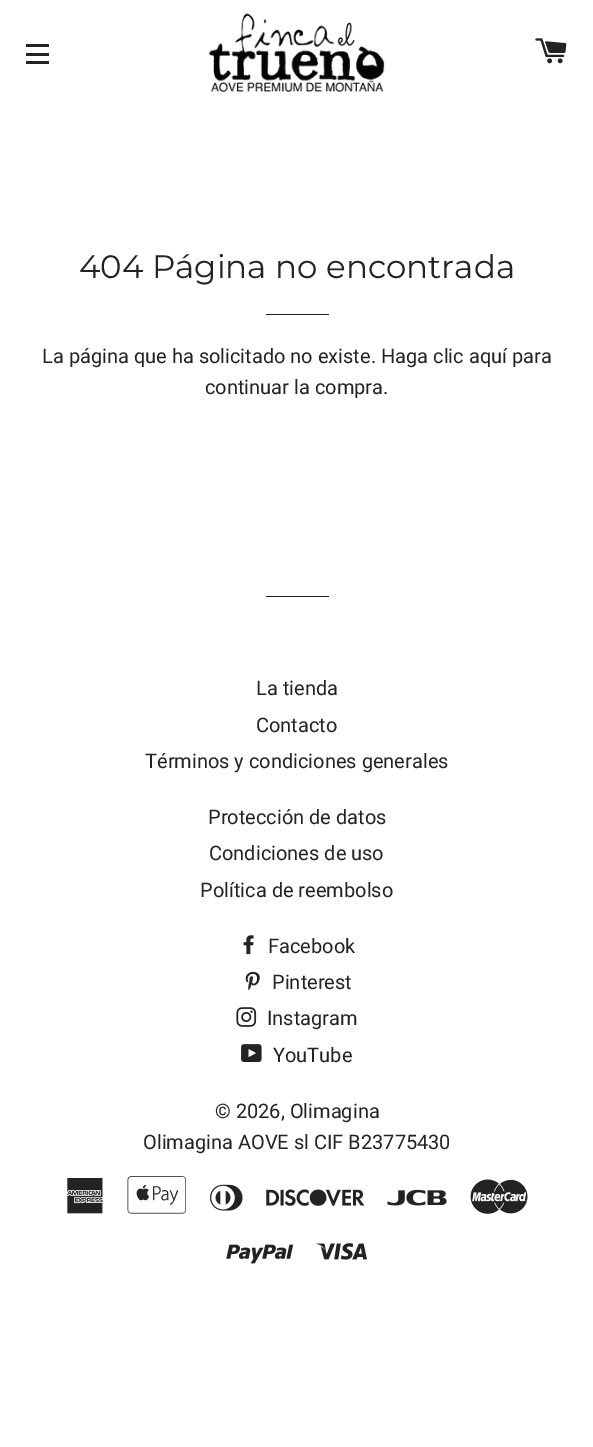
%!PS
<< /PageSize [593 1447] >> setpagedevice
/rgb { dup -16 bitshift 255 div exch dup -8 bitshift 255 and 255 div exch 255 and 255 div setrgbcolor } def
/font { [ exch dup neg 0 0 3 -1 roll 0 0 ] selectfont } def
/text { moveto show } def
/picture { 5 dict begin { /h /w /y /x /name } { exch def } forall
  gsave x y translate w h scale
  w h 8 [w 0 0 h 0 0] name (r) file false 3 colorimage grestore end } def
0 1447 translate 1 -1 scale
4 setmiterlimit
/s1 { /Montserrat-Thin 32.5 font 16#222323 rgb } def
/s2 { /Roboto-Regular 20 font 16#222323 rgb } def
16#FFFFFF rgb
0 0 593 1447 rectfill
16#222323 rgb
26 44 23 3 rectfill
26 53 23 3 rectfill
26 61 23 3 rectfill
(pic1.raw) 208 13 177 79 picture
(pic2.raw) 535 38 32 26 picture
s1
(404 Página no encontrada) 79 278 text
16#1C1D1D rgb
266 314 63 1 rectfill
s2
(La página que ha solicitado no existe. Haga clic aquí para) 42 363 text
(continuar la compra.) 205 394 text
16#1C1D1D rgb
266 596 63 1 rectfill
s2
(La tienda) 256 695 text
(Contacto) 256 732 text
(Términos y condiciones generales) 145 768 text
(Protección de datos) 208 824 text
(Condiciones de uso) 209 860 text
(Política de reembolso) 200 897 text
(pic3.raw) 243 935 11 20 picture
(Facebook) 268 953 text
(pic4.raw) 245 971 15 20 picture
(Pinterest) 272 989 text
(pic5.raw) 236 1007 21 20 picture
(Instagram) 267 1025 text
(pic6.raw) 241 1044 21 18 picture
(YouTube) 273 1062 text
(© 2026, Olimagina) 215 1118 text
(Olimagina AOVE sl CIF B23775430) 143 1149 text
(pic7.raw) 67 1178 36 36 picture
(pic8.raw) 127 1176 59 38 picture
(pic9.raw) 210 1184 33 27 picture
(pic10.raw) 266 1189 99 17 picture
(pic11.raw) 387 1189 60 17 picture
(pic12.raw) 470 1179 58 35 picture
(pic13.raw) 226 1244 68 20 picture
(pic14.raw) 316 1243 51 17 picture
showpage
